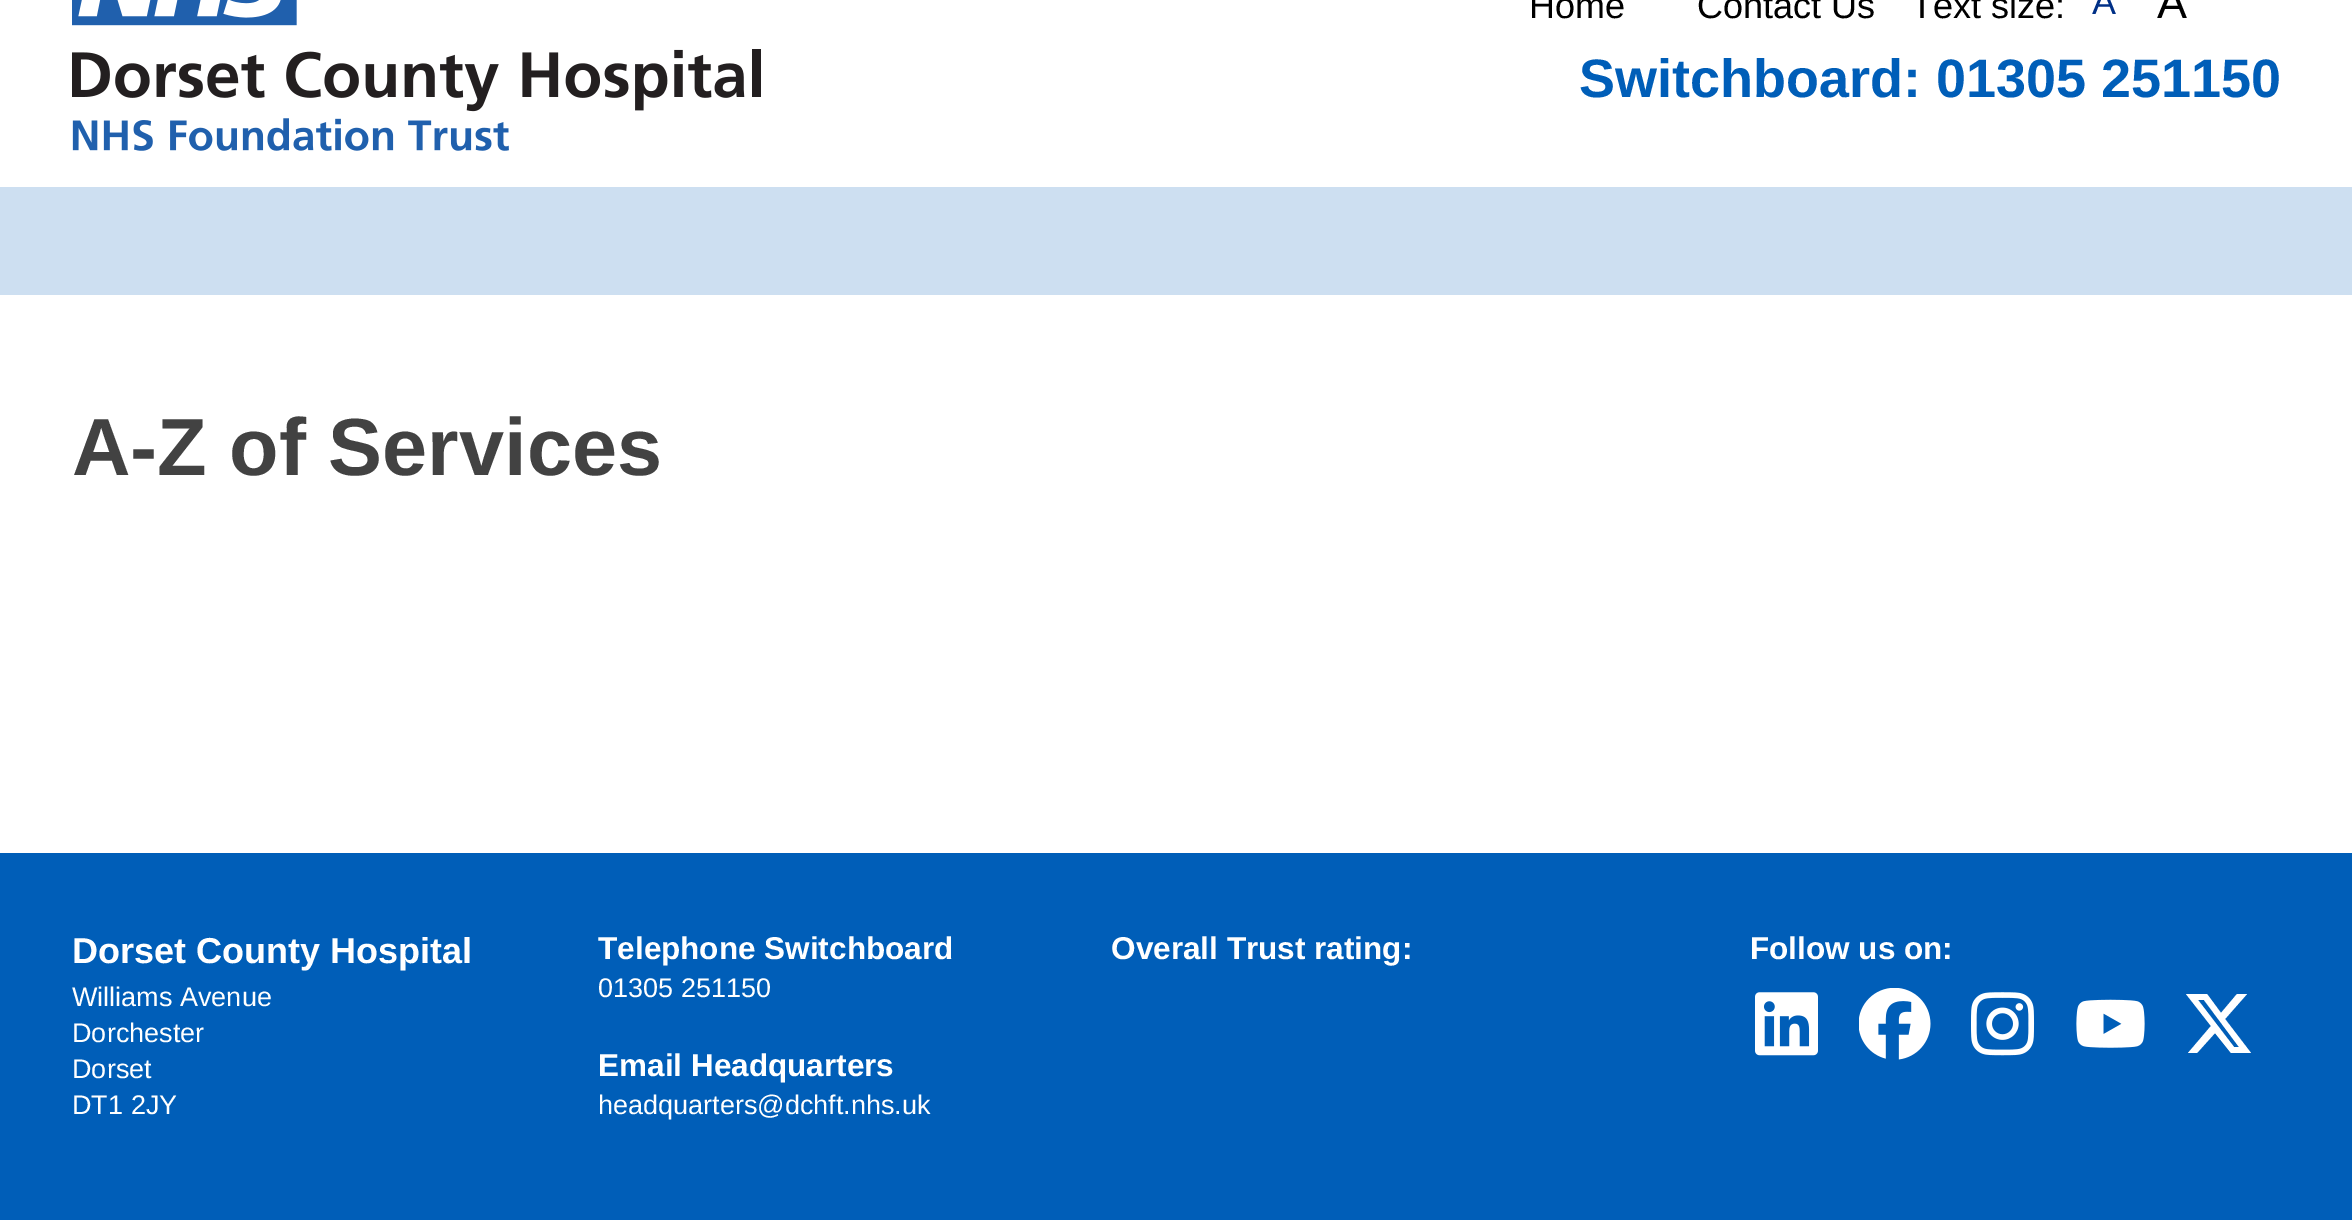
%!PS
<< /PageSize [2352 1220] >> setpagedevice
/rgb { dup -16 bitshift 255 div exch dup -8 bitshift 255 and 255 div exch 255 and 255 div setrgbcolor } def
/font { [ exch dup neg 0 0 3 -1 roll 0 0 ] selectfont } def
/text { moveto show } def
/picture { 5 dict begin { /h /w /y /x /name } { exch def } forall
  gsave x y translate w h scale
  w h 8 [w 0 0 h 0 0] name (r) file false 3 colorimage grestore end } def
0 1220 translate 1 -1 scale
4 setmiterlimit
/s1 { /LiberationSans-Regular 36 font 16#000000 rgb } def
/s2 { /LiberationSans-Regular 36 font 16#003087 rgb } def
/s3 { /LiberationSans-Regular 45 font 16#000000 rgb } def
/s4 { /LiberationSans-Bold 54 font 16#005EB8 rgb } def
/s5 { /LiberationSans-Bold 81 font 16#424242 rgb } def
/s6 { /LiberationSans-Bold 36 font 16#FFFFFF rgb } def
/s7 { /LiberationSans-Regular 27 font 16#FFFFFF rgb } def
/s8 { /LiberationSans-Bold 31.5 font 16#FFFFFF rgb } def
16#FFFFFF rgb
0 0 2352 1220 rectfill
(pic1.raw) 72 0 689 151 picture
s1
(Home) 1529 18 text
(Contact Us) 1697 18 text
(Text size:) 1911 18 text
s2
(A) 2092 14 text
s3
(A) 2157 18 text
s4
(Switchboard: 01305 251150) 1579 97 text
16#CDDFF1 rgb
0 187 2352 108 rectfill
s5
(A-Z of Services) 72 475 text
16#005EB8 rgb
0 853 2352 367 rectfill
s6
(Dorset County Hospital) 72 963 text
s7
(Williams Avenue) 72 1006 text
(Dorchester) 72 1042 text
(Dorset) 72 1078 text
(DT1 2JY) 72 1114 text
s8
(Telephone Switchboard) 598 959 text
s7
(01305 251150) 598 997 text
s8
(Email Headquarters) 598 1076 text
s7
(headquarters@dchft.nhs.uk) 598 1114 text
s8
(Overall Trust rating:) 1111 959 text
(Follow us on:) 1750 959 text
(pic2.raw) 1755 992 63 64 picture
(pic3.raw) 1859 988 72 72 picture
(pic4.raw) 1971 992 64 64 picture
(pic5.raw) 2076 999 69 49 picture
2237 994 moveto 2247 994 lineto 2225 1019 lineto 2251 1053 lineto 2231 1053 lineto 2215 1033 lineto 2197 1053 lineto 2188 1053 lineto 2211 1026 lineto 2186 994 lineto 2207 994 lineto 2221 1013 lineto closepath 2234 1047 moveto 2239 1047 lineto 2204 1000 lineto 2198 1000 lineto closepath fill
showpage
